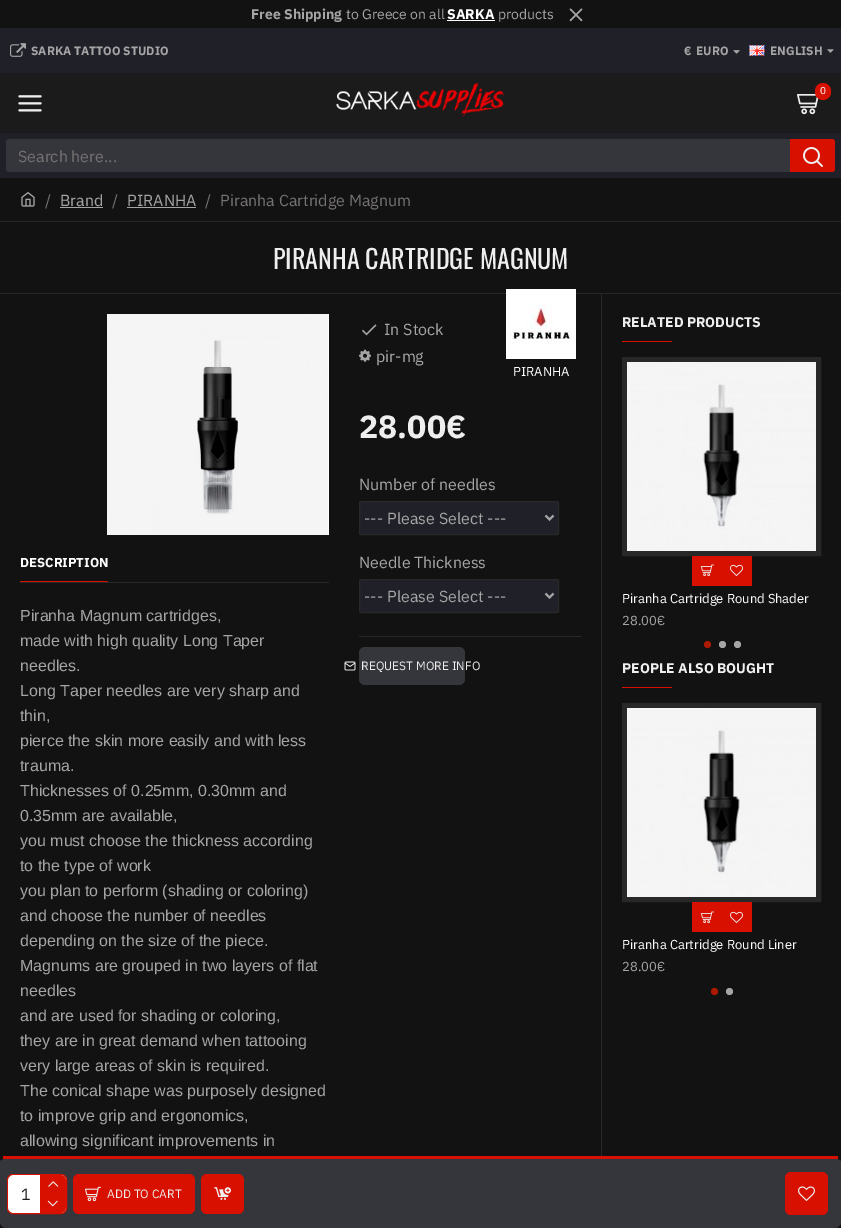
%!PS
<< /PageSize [841 1228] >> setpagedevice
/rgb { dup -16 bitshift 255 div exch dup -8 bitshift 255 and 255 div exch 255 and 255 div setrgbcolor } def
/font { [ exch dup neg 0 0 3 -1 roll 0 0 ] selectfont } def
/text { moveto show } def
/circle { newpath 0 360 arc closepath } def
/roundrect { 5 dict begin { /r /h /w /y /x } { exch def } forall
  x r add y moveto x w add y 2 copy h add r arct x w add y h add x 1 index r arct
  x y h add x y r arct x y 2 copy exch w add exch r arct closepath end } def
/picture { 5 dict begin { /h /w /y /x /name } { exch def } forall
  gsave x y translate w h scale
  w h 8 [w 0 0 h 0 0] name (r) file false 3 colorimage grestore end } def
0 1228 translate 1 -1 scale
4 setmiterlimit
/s1 { /IBMPlexSans-Bold 14 font 16#A5A5A5 rgb } def
/s2 { /IBMPlexSans-Regular 14 font 16#A5A5A5 rgb } def
/s3 { /IBMPlexSans-Bold 14 font 16#FFFFFF rgb } def
/s4 { /IBMPlexSans-Bold 12 font 16#A5A5A5 rgb } def
/s5 { /IBMPlexSans-Regular 10 font 16#FFFFFF rgb } def
/s6 { /IBMPlexSans-Regular 16 font 16#767272 rgb } def
/s7 { /IBMPlexSans-Regular 16 font 16#A5A5A5 rgb } def
/s8 { /Oswald-Regular 26 font 16#EEEEEE rgb } def
/s9 { /IBMPlexSans-Regular 13 font 16#FFFFFF rgb } def
/s10 { /IBMPlexSans-Bold 32 font 16#EEEEEE rgb } def
/s11 { /IBMPlexSans-Regular 16 font 16#1B1B1B rgb } def
/s12 { /IBMPlexSans-Regular 12 font 16#EEEEEE rgb } def
/s13 { /IBMPlexSans-Bold 13 font 16#FFFFFF rgb } def
/s14 { /LiberationSans-Regular 16 font 16#A5A5A5 rgb } def
/s15 { /IBMPlexSans-Bold 14 font 16#EEEEEE rgb } def
/s16 { /IBMPlexSans-Regular 13 font 16#A5A5A5 rgb } def
16#121212 rgb
0 0 841 1228 rectfill
s1
(Free Shipping) 251 19 text
s2
(to Greece on all) 346 19 text
s3
(SARKA) 447 19 text
447 20 48 1 rectfill
s2
(products) 498 19 text
(pic1.raw) 569 8 14 14 picture
16#202029 rgb
0 28 841 45 rectfill
(pic2.raw) 10 43 16 14 picture
s4
(SARKA TATTOO STUDIO) 31 55 text
(€) 684 55 text
(EURO) 696 55 text
(pic3.raw) 733 50 7 4 picture
(pic4.raw) 749 45 16 11 picture
(ENGLISH) 770 55 text
(pic5.raw) 827 49 7 4 picture
16#1B1B1B rgb
0 73 841 60 rectfill
(pic6.raw) 336 83 168 34 picture
(pic7.raw) 797 94 22 21 picture
16#D81000 rgb
815 83 16 17 8 roundrect fill
s5
(0) 820 94 text
(pic8.raw) 18 95 24 17 picture
16#202029 rgb
0 133 841 45 rectfill
16#35353C rgb
9 139 moveto 790 139 lineto 790 172 lineto 9 172 lineto 7.5 172 6 170.5 6 169 curveto 6 142 lineto 6 140.5 7.5 139 9 139 curveto closepath fill
s6
(Search here...) 18 162 text
16#D81000 rgb
790 139 moveto 832 139 lineto 833.5 139 835 140.5 835 142 curveto 835 169 lineto 835 170.5 833.5 172 832 172 curveto 790 172 lineto closepath fill
(pic9.raw) 803 147 20 20 picture
(pic10.raw) 21 192 14 15 picture
s6
(/) 45 206 text
s7
(Brand) 60 206 text
60 207 43 1 rectfill
s6
(/) 112 206 text
s7
(PIRANHA) 127 206 text
127 207 69 1 rectfill
s6
(/) 205 206 text
(Piranha Cartridge Magnum) 220 206 text
16#282828 rgb
0 221 841 1 rectfill
0 293 841 1 rectfill
s8
(PIRANHA CARTRIDGE MAGNUM) 273 269 text
(pic11.raw) 362 324 15 12 picture
s7
(In Stock) 384 335 text
(pic12.raw) 359 349 12 13 picture
(pir-mg) 376 362 text
(pic13.raw) 506 289 70 70 picture
s9
(PIRANHA) 513 376 text
s10
(28.00€) 359 438 text
s7
(Number of needles) 359 490 text
16#202029 rgb
359.5 501.5 199 33 1.5 roundrect gsave fill grestore
16#282828 rgb
stroke
16#A5A5A5 rgb
2 setlinewidth
545.5 515.5 moveto 549.5 519.5 lineto 553.5 515.5 lineto stroke
(--- Please Select ---) 364 524 text
(Needle Thickness) 359 568 text
16#202029 rgb
359.5 579.5 199 33 1.5 roundrect gsave fill grestore
16#282828 rgb
1 setlinewidth
stroke
16#A5A5A5 rgb
2 setlinewidth
545.5 593.5 moveto 549.5 597.5 lineto 553.5 593.5 lineto stroke
(--- Please Select ---) 364 602 text
16#35353C rgb
6 1159 moveto 835 1159 lineto 838 1159 841 1160 841 1162 curveto 841 1222 lineto 841 1225 838 1228 835 1228 curveto 6 1228 lineto 3 1228 0 1225 0 1222 curveto 0 1162 lineto 0 1160 3 1159 6 1159 curveto closepath fill
16#D81000 rgb
3 1156 835 3 rectfill
1 setlinewidth
7.5 1174.5 59 39 5.5 roundrect stroke
16#FFFFFF rgb
8 1175 58 38 6 roundrect fill
s11
(1) 21 1200 text
16#D81000 rgb
40 1175 1 38 rectfill
41 1175 moveto 60 1175 lineto 63.5 1175 66 1177.5 66 1181 curveto 66 1193 lineto 41 1193 lineto closepath fill
41 1193 25 1 rectfill
(pic14.raw) 48 1181 11 6 picture
41 1194 moveto 66 1194 lineto 66 1207 lineto 66 1210.5 63.5 1213 60 1213 curveto 41 1213 lineto closepath fill
(pic15.raw) 47 1200 11 7 picture
73 1174 122 40 6 roundrect fill
(pic16.raw) 85 1186 16 16 picture
s12
(ADD TO CART) 107 1198 text
16#D81000 rgb
201 1174 43 40 6 roundrect fill
(pic17.raw) 214 1187 17 13 picture
785 1172 43 43 6 roundrect fill
(pic18.raw) 798 1186 17 15 picture
16#282828 rgb
359 636 222 1 rectfill
16#35353C rgb
359 647 106 38 6 roundrect fill
(pic19.raw) 344 661 12 10 picture
s12
(REQUEST MORE INFO) 361 670 text
(pic20.raw) 107 314 221 221 picture
16#FEFEFE rgb
328 314 1 221 rectfill
16#282828 rgb
20 582 309 1 rectfill
16#D81000 rgb
20 581 88 1 rectfill
s13
(DESCRIPTION) 20 567 text
s14
(Piranha Magnum cartridges,) 20 621 text
(made with high quality Long Taper) 20 646 text
(needles.) 20 671 text
(Long Taper needles are very sharp and) 20 696 text
(thin,) 20 721 text
(pierce the skin more easily and with less) 20 746 text
(trauma.) 20 771 text
(Thicknesses of 0.25mm, 0.30mm and) 20 796 text
(0.35mm are available,) 20 821 text
(you must choose the thickness according) 20 846 text
(to the type of work) 20 871 text
(you plan to perform \(shading or coloring\)) 20 896 text
(and choose the number of needles) 20 921 text
(depending on the size of the piece.) 20 946 text
(Magnums are grouped in two layers of flat) 20 971 text
(needles) 20 996 text
(and are used for shading or coloring,) 20 1021 text
(they are in great demand when tattooing) 20 1046 text
(very large areas of skin is required.) 20 1071 text
(The conical shape was purposely designed) 20 1096 text
(to improve grip and ergonomics,) 20 1121 text
(allowing significant improvements in) 20 1146 text
16#282828 rgb
601 294 1 862 rectfill
s15
(RELATED PRODUCTS) 622 327 text
16#D81000 rgb
622 341 50 1 rectfill
16#282828 rgb
5 setlinewidth
624.5 359.5 194 194 rectstroke
(pic21.raw) 627 362 189 189 picture
16#D81000 rgb
692 556 60 30 rectfill
(pic22.raw) 701 564 13 13 picture
(pic23.raw) 730 564 13 12 picture
s9
(Piranha Cartridge Round Shader) 622 603 text
s16
(28.00€) 622 625 text
16#AA1900 rgb
707.5 644.5 3.5 circle fill
16#A5A5A5 rgb
722.5 644.5 3.5 circle fill
737.5 644.5 3.5 circle fill
s15
(PEOPLE ALSO BOUGHT) 622 673 text
16#D81000 rgb
622 687 50 1 rectfill
16#282828 rgb
624.5 705.5 194 194 rectstroke
(pic24.raw) 627 708 189 189 picture
16#D81000 rgb
692 902 60 30 rectfill
(pic22.raw) 701 911 13 13 picture
(pic23.raw) 730 911 13 12 picture
s9
(Piranha Cartridge Round Liner) 622 949 text
s16
(28.00€) 622 971 text
16#AA1900 rgb
714.5 991.5 3.5 circle fill
16#A5A5A5 rgb
729.5 991.5 3.5 circle fill
showpage
